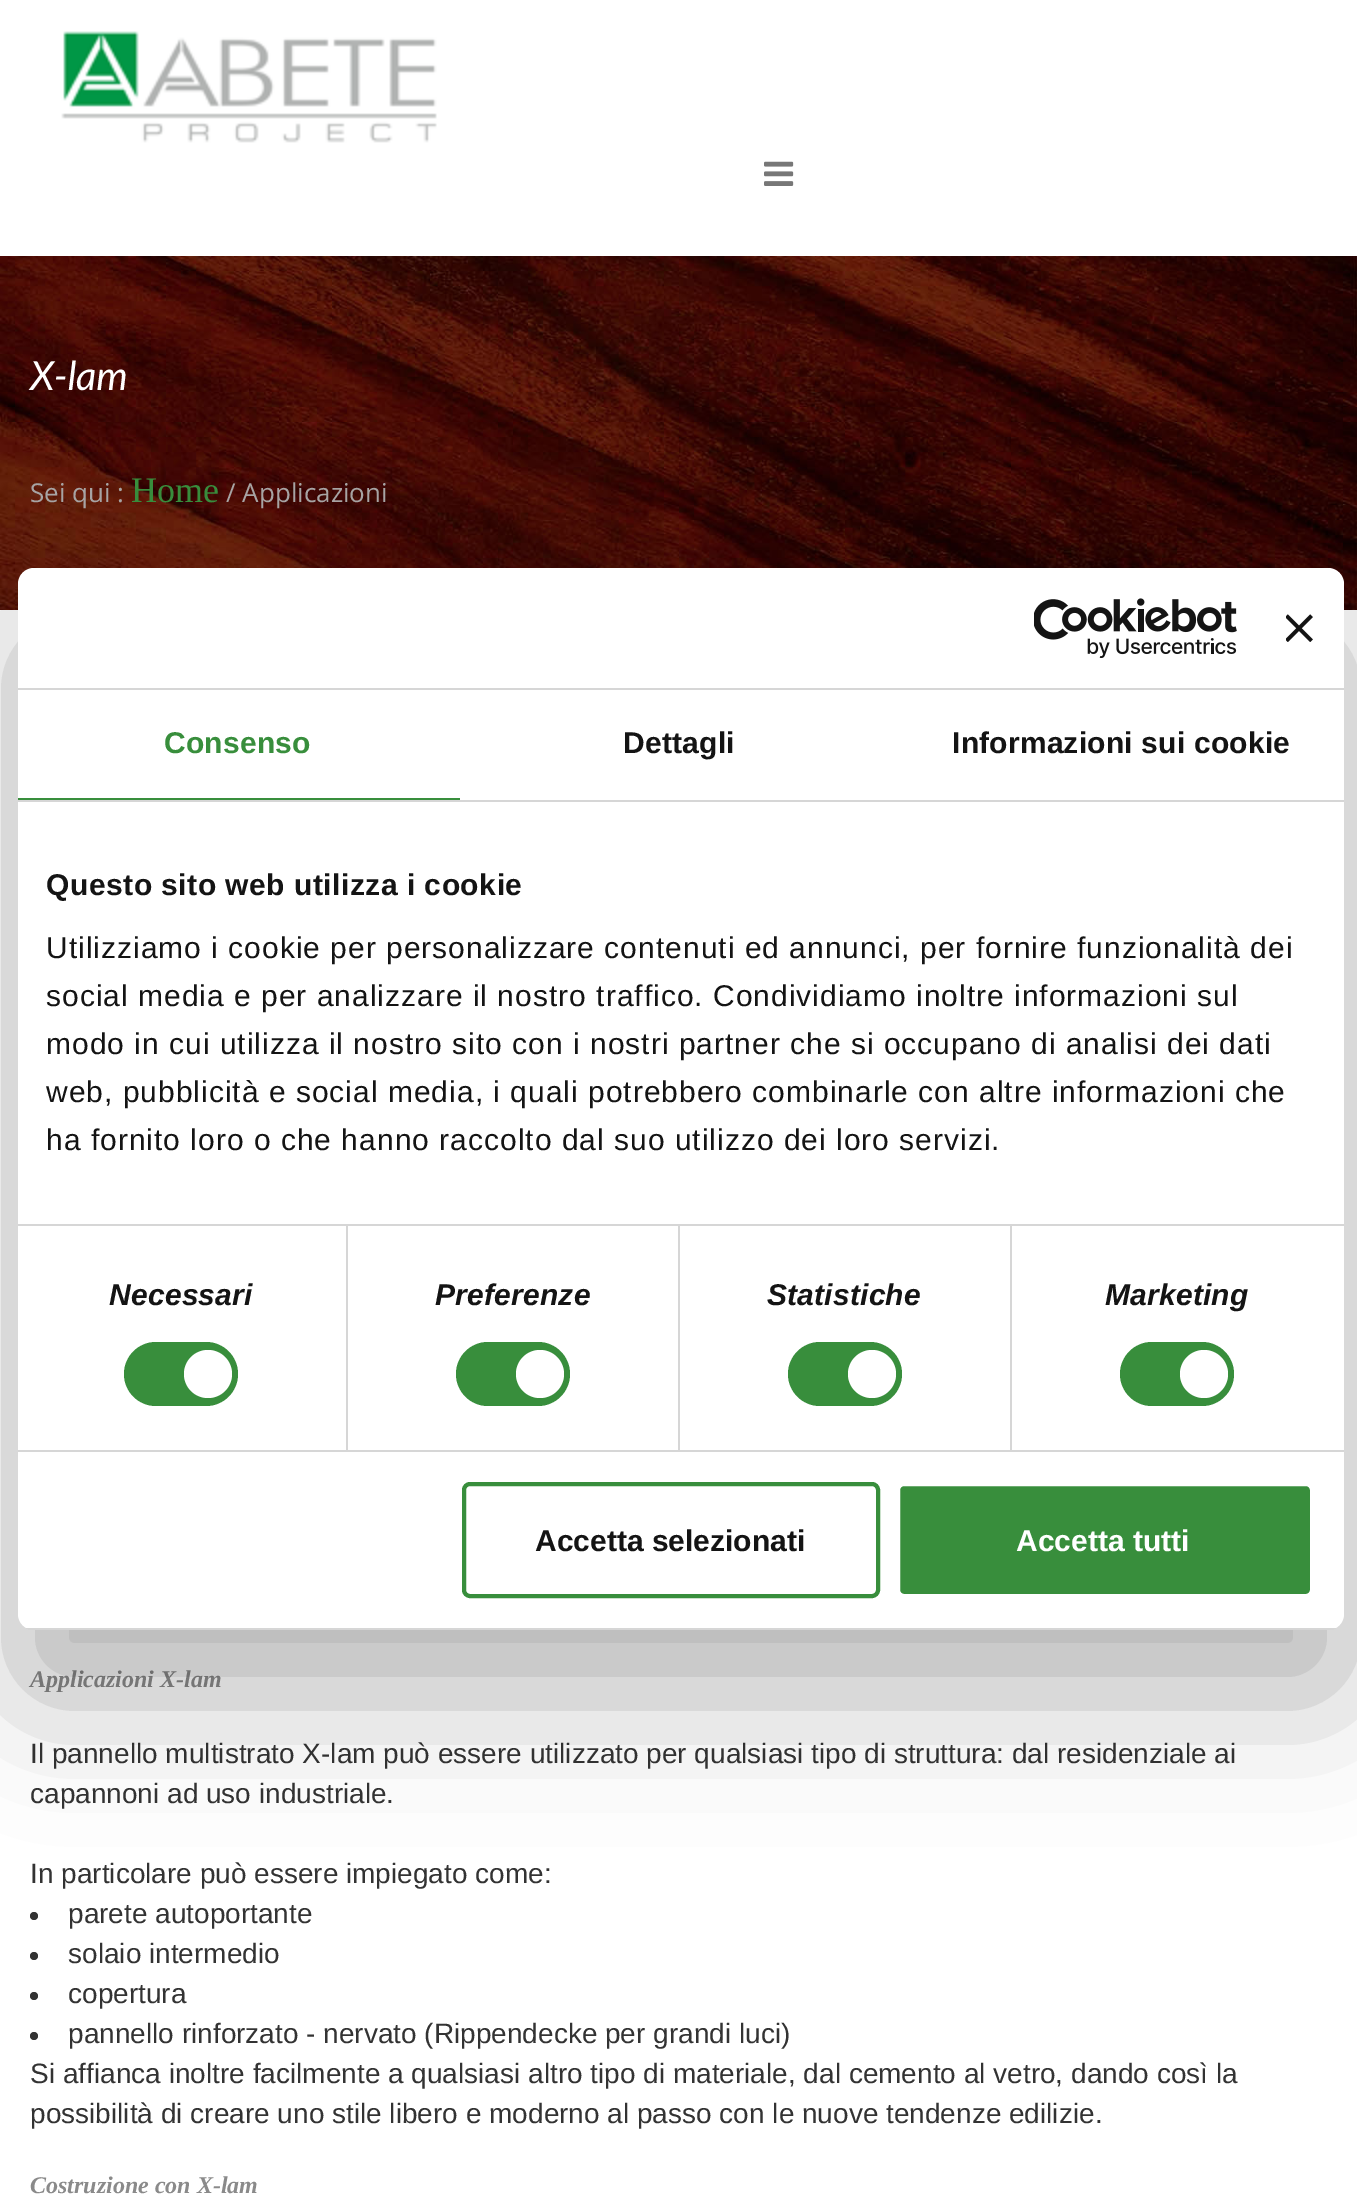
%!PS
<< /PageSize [1357 2197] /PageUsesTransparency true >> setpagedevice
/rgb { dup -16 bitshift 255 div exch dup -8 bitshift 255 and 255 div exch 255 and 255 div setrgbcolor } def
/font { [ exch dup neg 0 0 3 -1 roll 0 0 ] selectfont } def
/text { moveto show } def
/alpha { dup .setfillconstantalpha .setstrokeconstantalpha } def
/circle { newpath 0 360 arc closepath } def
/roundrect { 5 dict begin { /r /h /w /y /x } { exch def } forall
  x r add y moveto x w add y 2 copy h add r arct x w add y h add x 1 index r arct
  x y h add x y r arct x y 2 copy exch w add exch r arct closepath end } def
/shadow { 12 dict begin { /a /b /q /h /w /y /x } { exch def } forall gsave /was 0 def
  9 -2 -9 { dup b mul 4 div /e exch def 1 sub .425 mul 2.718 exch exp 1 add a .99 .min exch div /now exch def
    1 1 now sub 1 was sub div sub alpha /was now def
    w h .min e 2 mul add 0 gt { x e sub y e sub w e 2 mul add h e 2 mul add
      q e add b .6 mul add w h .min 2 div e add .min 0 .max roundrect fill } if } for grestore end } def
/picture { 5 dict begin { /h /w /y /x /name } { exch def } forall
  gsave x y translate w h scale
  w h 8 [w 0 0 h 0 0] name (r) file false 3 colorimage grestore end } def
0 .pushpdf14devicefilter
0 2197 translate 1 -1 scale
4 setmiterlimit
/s1 { /Lato-Italic 40 font 16#FFFFFF rgb } def
/s2 { /OpenSans-Regular 26 font 16#A8A5A5 rgb } def
/s3 { /LiberationSerif-Regular 36 font 16#388E3C rgb } def
/s4 { /LiberationSerif-BoldItalic 24 font 16#8A8A8A rgb } def
/s5 { /LiberationSans-Regular 28 font 16#333333 rgb } def
/s6 { /LiberationSans-Bold 30 font 16#141414 rgb } def
/s7 { /LiberationSans-Bold 30 font 16#FFFFFF rgb } def
16#FFFFFF rgb
0 0 1357 2197 rectfill
(pic1.raw) 61 31 376 112 picture
(pic2.raw) 764 161 30 25 picture
(pic3.raw) 0 256 1357 354 picture
s1
(X-lam) 30 390 text
s2
(Sei qui :) 30 502 text
s3
(Home) 131 502 text
s2
(/ Applicazioni) 226 502 text
s4
(Applicazioni X-lam) 30 1687 text
s5
(Il pannello multistrato X-lam può essere utilizzato per qualsiasi tipo di struttura: dal residenziale ai) 30 1763 text
(capannoni ad uso industriale.) 30 1803 text
(In particolare può essere impiegato come:) 30 1883 text
34 1916 4 circle fill
(parete autoportante) 68 1923 text
34 1956 4 circle fill
(solaio intermedio) 68 1963 text
34 1996 4 circle fill
(copertura) 68 2003 text
34 2036 4 circle fill
(pannello rinforzato - nervato \(Rippendecke per grandi luci\)) 68 2043 text
(Si affianca inoltre facilmente a qualsiasi altro tipo di materiale, dal cemento al vetro, dando così la) 30 2083 text
(possibilità di creare uno stile libero e moderno al passo con le nuove tendenze edilizie.) 30 2123 text
s4
(Costruzione con X-lam) 30 2193 text
16#000000 rgb
18 632 1326 1062 16 68 0.3 shadow
16#FFFFFF rgb
18 568 1326 1062 16 roundrect fill
16#D6D6D6 rgb
18 688 1326 2 rectfill
(pic4.raw) 1034 598 203 60 picture
(pic5.raw) 1286 614 27 28 picture
18 800 1326 2 rectfill
16#388E3C rgb
18 798 442 2 rectfill
/LiberationSans-Bold 30 font
164 753 moveto 0.2 0 (Consenso) ashow
16#141414 rgb
623 753 moveto 0.2 0 (Dettagli) ashow
952 753 moveto 0.2 0 (Informazioni sui cookie) ashow
16#D6D6D6 rgb
18 1224 1326 2 rectfill
16#141414 rgb
46 895 moveto 0.5 0 (Questo sito web utilizza i cookie) ashow
/LiberationSans-Regular 30 font
46 958 moveto 1 0 (Utilizziamo i cookie per personalizzare contenuti ed annunci, per fornire funzionalità dei) ashow
46 1006 moveto 1 0 (social media e per analizzare il nostro traffico. Condividiamo inoltre informazioni sul) ashow
46 1054 moveto 1 0 (modo in cui utilizza il nostro sito con i nostri partner che si occupano di analisi dei dati) ashow
46 1102 moveto 1 0 (web, pubblicità e social media, i quali potrebbero combinarle con altre informazioni che) ashow
46 1150 moveto 1 0 (ha fornito loro o che hanno raccolto dal suo utilizzo dei loro servizi.) ashow
16#D6D6D6 rgb
18 1450 1326 2 rectfill
346 1226 2 224 rectfill
/LiberationSans-BoldItalic 30 font
16#141414 rgb
109 1305 moveto 0.2 0 (Necessari) ashow
16#388E3C rgb
124 1342 114 64 32 roundrect fill
16#FFFFFF rgb
208 1374 24 circle fill
16#D6D6D6 rgb
678 1226 2 224 rectfill
16#141414 rgb
435 1305 moveto 0.2 0 (Preferenze) ashow
16#388E3C rgb
456 1342 114 64 32 roundrect fill
16#FFFFFF rgb
540 1374 24 circle fill
16#D6D6D6 rgb
1010 1226 2 224 rectfill
16#141414 rgb
767 1305 moveto 0.2 0 (Statistiche) ashow
16#388E3C rgb
788 1342 114 64 32 roundrect fill
16#FFFFFF rgb
872 1374 24 circle fill
16#141414 rgb
1105 1305 moveto 0.2 0 (Marketing) ashow
16#388E3C rgb
1120 1342 114 64 32 roundrect fill
16#FFFFFF rgb
1204 1374 24 circle fill
gsave
18 568 1326 1062 16 roundrect clip newpath
16#D6D6D6 rgb
18 1628 1326 2 rectfill
grestore
16#388E3C rgb
4 setlinewidth
464 1484 414 112 6 roundrect stroke
s6
(Accetta selezionati) 535 1551 text
16#388E3C rgb
898 1484 414 112 6 roundrect gsave fill grestore
16#FFFFFF rgb
stroke
(Accetta tutti) 1016 1551 text
.poppdf14devicefilter showpage
